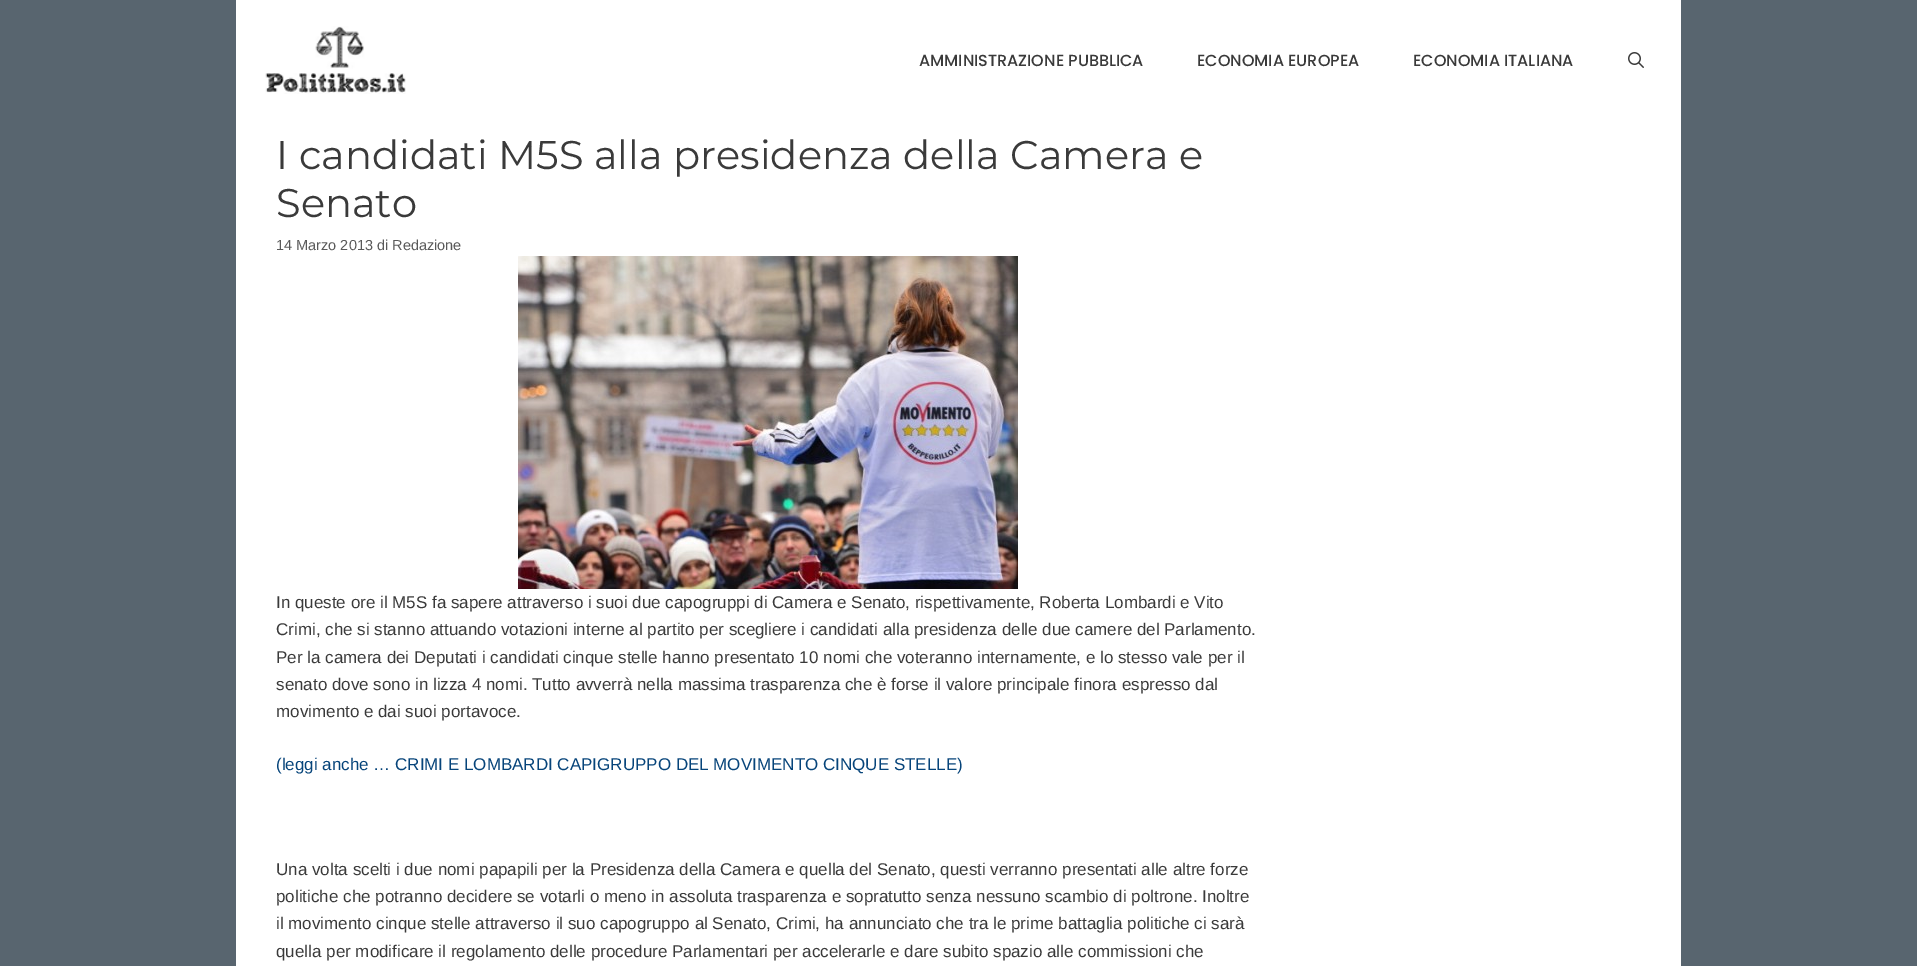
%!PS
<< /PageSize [1917 966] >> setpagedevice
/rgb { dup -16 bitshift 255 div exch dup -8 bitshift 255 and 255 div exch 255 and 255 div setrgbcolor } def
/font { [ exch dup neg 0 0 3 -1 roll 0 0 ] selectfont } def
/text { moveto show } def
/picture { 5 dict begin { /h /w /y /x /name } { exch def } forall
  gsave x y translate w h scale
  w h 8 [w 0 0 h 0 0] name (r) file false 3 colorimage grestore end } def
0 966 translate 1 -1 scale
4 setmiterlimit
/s1 { /Poppins-Medium 16 font 16#3A3A3A rgb } def
/s2 { /Montserrat-Regular 40 font 16#3A3A3A rgb } def
/s3 { /LiberationSans-Regular 14.5 font 16#595959 rgb } def
/s4 { /LiberationSans-Regular 17 font 16#3A3A3A rgb } def
/s5 { /LiberationSans-Regular 17 font 16#06447A rgb } def
16#58656F rgb
0 0 1917 966 rectfill
16#FFFFFF rgb
236 0 1445 966 rectfill
(pic1.raw) 265 26 141 68 picture
s1
(AMMINISTRAZIONE PUBBLICA) 919 66 text
(ECONOMIA EUROPEA) 1197 66 text
(ECONOMIA ITALIANA) 1413 66 text
(pic2.raw) 1628 52 16 16 picture
s2
(I candidati M5S alla presidenza della Camera e) 276 169 text
(Senato) 276 217 text
s3
(14 Marzo 2013 di Redazione) 276 250 text
(pic3.raw) 518 256 500 333 picture
s4
(In queste ore il M5S fa sapere attraverso i suoi due capogruppi di Camera e Senato, rispettivamente, Roberta Lombardi e Vito) 276 608 text
(Crimi, che si stanno attuando votazioni interne al partito per scegliere i candidati alla presidenza delle due camere del Parlamento.) 276 635 text
(Per la camera dei Deputati i candidati cinque stelle hanno presentato 10 nomi che voteranno internamente, e lo stesso vale per il) 276 663 text
(senato dove sono in lizza 4 nomi. Tutto avverrà nella massima trasparenza che è forse il valore principale finora espresso dal) 276 690 text
(movimento e dai suoi portavoce.) 276 717 text
s5
(\(leggi anche … CRIMI E LOMBARDI CAPIGRUPPO DEL MOVIMENTO CINQUE STELLE\)) 276 770 text
s4
(Una volta scelti i due nomi papapili per la Presidenza della Camera e quella del Senato, questi verranno presentati alle altre forze) 276 875 text
(politiche che potranno decidere se votarli o meno in assoluta trasparenza e sopratutto senza nessuno scambio di poltrone. Inoltre) 276 902 text
(il movimento cinque stelle attraverso il suo capogruppo al Senato, Crimi, ha annunciato che tra le prime battaglia politiche ci sarà) 276 929 text
(quella per modificare il regolamento delle procedure Parlamentari per accelerarle e dare subito spazio alle commissioni che) 276 957 text
showpage
